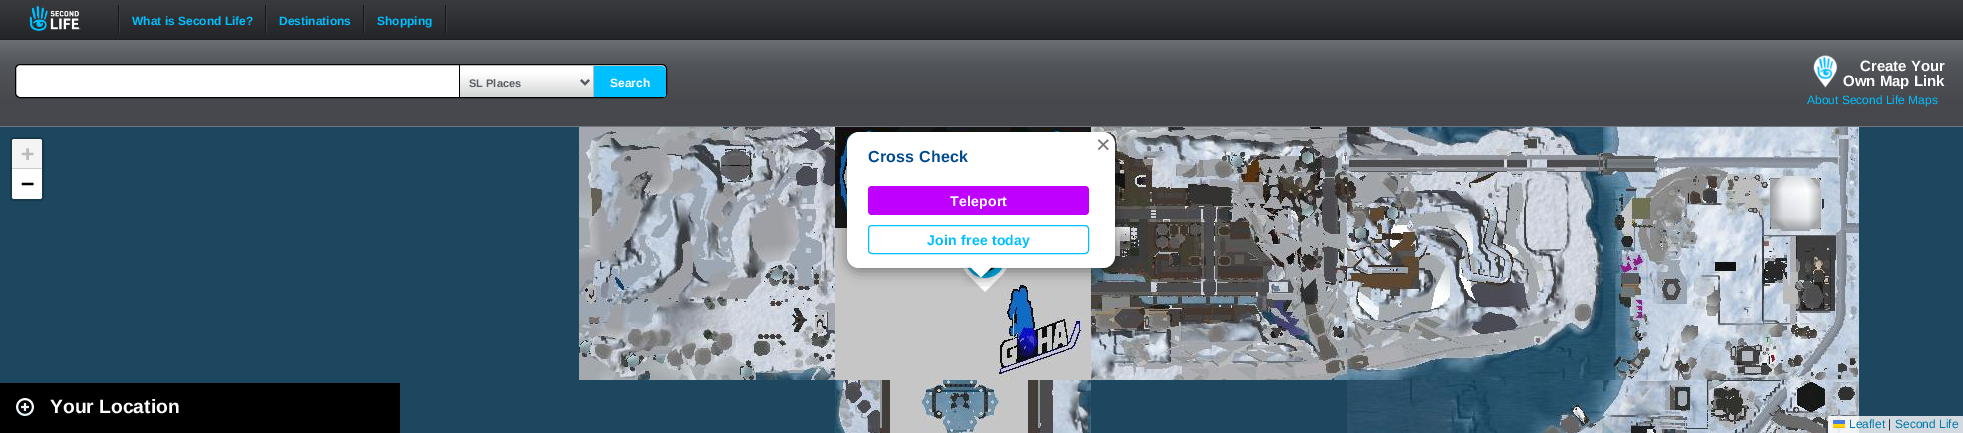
%!PS
<< /PageSize [1963 433] /PageUsesTransparency true >> setpagedevice
/rgb { dup -16 bitshift 255 div exch dup -8 bitshift 255 and 255 div exch 255 and 255 div setrgbcolor } def
/font { [ exch dup neg 0 0 3 -1 roll 0 0 ] selectfont } def
/text { moveto show } def
/alpha { dup .setfillconstantalpha .setstrokeconstantalpha } def
/roundrect { 5 dict begin { /r /h /w /y /x } { exch def } forall
  x r add y moveto x w add y 2 copy h add r arct x w add y h add x 1 index r arct
  x y h add x y r arct x y 2 copy exch w add exch r arct closepath end } def
/shadow { 12 dict begin { /a /b /q /h /w /y /x } { exch def } forall gsave /was 0 def
  9 -2 -9 { dup b mul 4 div /e exch def 1 sub .425 mul 2.718 exch exp 1 add a .99 .min exch div /now exch def
    1 1 now sub 1 was sub div sub alpha /was now def
    w h .min e 2 mul add 0 gt { x e sub y e sub w e 2 mul add h e 2 mul add
      q e add b .6 mul add w h .min 2 div e add .min 0 .max roundrect fill } if } for grestore end } def
/picture { 5 dict begin { /h /w /y /x /name } { exch def } forall
  gsave x y translate w h scale
  w h 8 [w 0 0 h 0 0] name (r) file false 3 colorimage grestore end } def
0 .pushpdf14devicefilter
0 433 translate 1 -1 scale
4 setmiterlimit
/s1 { /LiberationSans-Bold 12 font 16#00BFFF rgb } def
/s2 { /LiberationSans-Bold 11 font 16#595C62 rgb } def
/s3 { /LiberationSans-Bold 12 font 16#FFFFFF rgb } def
/s4 { /LiberationSans-Bold 15 font 16#FFFFFF rgb } def
/s5 { /LiberationSans-Regular 12 font 16#00BFFF rgb } def
/s6 { /LiberationSans-Regular 25 font 16#757575 rgb } def
/s7 { /DejaVuSansMono-Bold 22 font 16#BBBBBB rgb } def
/s8 { /DejaVuSansMono-Bold 22 font 16#000000 rgb } def
/s9 { /LiberationSans-Regular 12 font 16#0078A8 rgb } def
/s10 { /LiberationSans-Regular 12 font 16#333333 rgb } def
/s11 { /LiberationSans-Bold 19.25 font 16#FFFFFF rgb } def
16#1D475F rgb
0 0 1963 433 rectfill
(pic1.raw) 0 0 1963 40 picture
(pic2.raw) 29 6 52 25 picture
16#3A3E42 rgb
119 5 1 28 rectfill
16#161616 rgb
118 5 1 28 rectfill
s1
(What is Second Life?) 132 25 text
16#3A3E42 rgb
266 5 1 28 rectfill
16#161616 rgb
265 5 1 28 rectfill
s1
(Destinations) 279 25 text
16#3A3E42 rgb
364 5 1 28 rectfill
16#161616 rgb
363 5 1 28 rectfill
s1
(Shopping) 377 25 text
16#3A3E42 rgb
446 5 1 28 rectfill
16#161616 rgb
445 5 1 28 rectfill
(pic5.raw) 579 127 256 253 picture
(pic6.raw) 835 127 256 253 picture
(pic7.raw) 1091 127 256 253 picture
(pic13.raw) 963 268 44 24 picture
16#000000 rgb
847 135 268 136 12 7 0.4 shadow
gsave 0 40 moveto 1963 40 lineto 1963 126 lineto 0 126 lineto closepath clip newpath
<< /ShadingType 2 /ColorSpace /DeviceRGB /Coords [0 126 0 40] /Extend [true true] /Function << /FunctionType 3 /Domain [0 1] /Functions [<< /FunctionType 2 /Domain [0 1] /C0 [0.278 0.282 0.302] /C1 [0.278 0.282 0.302] /N 1 >> << /FunctionType 2 /Domain [0 1] /C0 [0.278 0.282 0.302] /C1 [0.318 0.333 0.349] /N 1 >> << /FunctionType 2 /Domain [0 1] /C0 [0.318 0.333 0.349] /C1 [0.42 0.431 0.451] /N 1 >>] /Bounds [0.29 0.71] /Encode [0 1 0 1 0 1] >> >> shfill grestore
16#72777E rgb
0 126 1963 1 rectfill
16#FFFFFF rgb
15.5 64.5 651 33 4.5 roundrect gsave fill grestore
16#000000 rgb
stroke
(pic3.raw) 460 66 133 31 picture
16#BBBBBB rgb
459 65 135 1 rectfill
593 65 1 32 rectfill
16#000000 rgb
459 65 1 32 rectfill
16#595C62 rgb
2 setlinewidth
581 80 moveto 585 84 lineto 589 80 lineto stroke
s2
(SL Places) 469 87 text
gsave
16 65 650 32 4 roundrect clip newpath
16#00BFFF rgb
594 66 moveto 661 66 lineto 664 66 666 68 666 71 curveto 666 95 lineto 666 98 664 100 661 100 curveto 594 100 lineto closepath fill
grestore
s3
(Search) 610 87 text
(pic4.raw) 1813 55 25 33 picture
s4
(Create Your) 1860 71 text
(Own Map Link) 1843 86 text
s5
(About Second Life Maps) 1807 104 text
(pic8.raw) 1347 127 256 253 picture
(pic9.raw) 1603 127 256 253 picture
(pic10.raw) 835 380 256 53 picture
(pic11.raw) 1347 380 256 53 picture
(pic12.raw) 1603 380 256 53 picture
16#FFFFFF rgb
847 132 268 136 12 roundrect fill
s6
(×) 1096 153 text
/LiberationSans-Bold 16 font
16#014A8E rgb
868 162 moveto 0.25 0 (Cross Check) ashow
16#BF00FF rgb
868 186 221 29 4 roundrect fill
/LiberationSans-Bold 14 font
16#FFFFFF rgb
950 206 moveto 0.25 0 (Teleport) ashow
16#00BFFF rgb
1 setlinewidth
868.5 225.5 220 28 3.5 roundrect stroke
927 245 moveto 0.25 0 (Join free today) ashow
gsave
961 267 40 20 rectclip
16#000000 rgb
973 260 17 17 0 7 0.4 shadow
grestore
gsave
961 267 40 20 rectclip
16#FFFFFF rgb
981 253.5 moveto 993 265.5 lineto 981 277.5 lineto 969 265.5 lineto closepath fill
grestore
16#17394C rgb
2 setlinewidth
11 138 32 62 3 roundrect stroke
16#F4F4F4 rgb
14 139 moveto 40 139 lineto 41 139 42 140 42 141 curveto 42 169 lineto 12 169 lineto 12 141 lineto 12 140 13 139 14 139 curveto closepath fill
16#CCCCCC rgb
12 168 30 1 rectfill
s7
(+) 21 161 text
16#FFFFFF rgb
12 169 moveto 42 169 lineto 42 197 lineto 42 198 41 199 40 199 curveto 14 199 lineto 13 199 12 198 12 197 curveto closepath fill
s8
(−) 21 191 text
0.8 alpha
16#FFFFFF rgb
1828 416 135 17 rectfill
1 alpha
s9
(Leaflet) 1849 428 text
16#4C7BE1 rgb
1833 420 12 4 rectfill
16#FFD500 rgb
1833 424 12 3 rectfill
16#E0BC00 rgb
1833 427 12 1 rectfill
s10
(|) 1888 428 text
s9
(Second Life) 1895 428 text
16#000000 rgb
0 383 400 50 rectfill
(pic14.raw) 16 398 18 18 picture
s11
(Your Location) 50 413 text
.poppdf14devicefilter showpage
